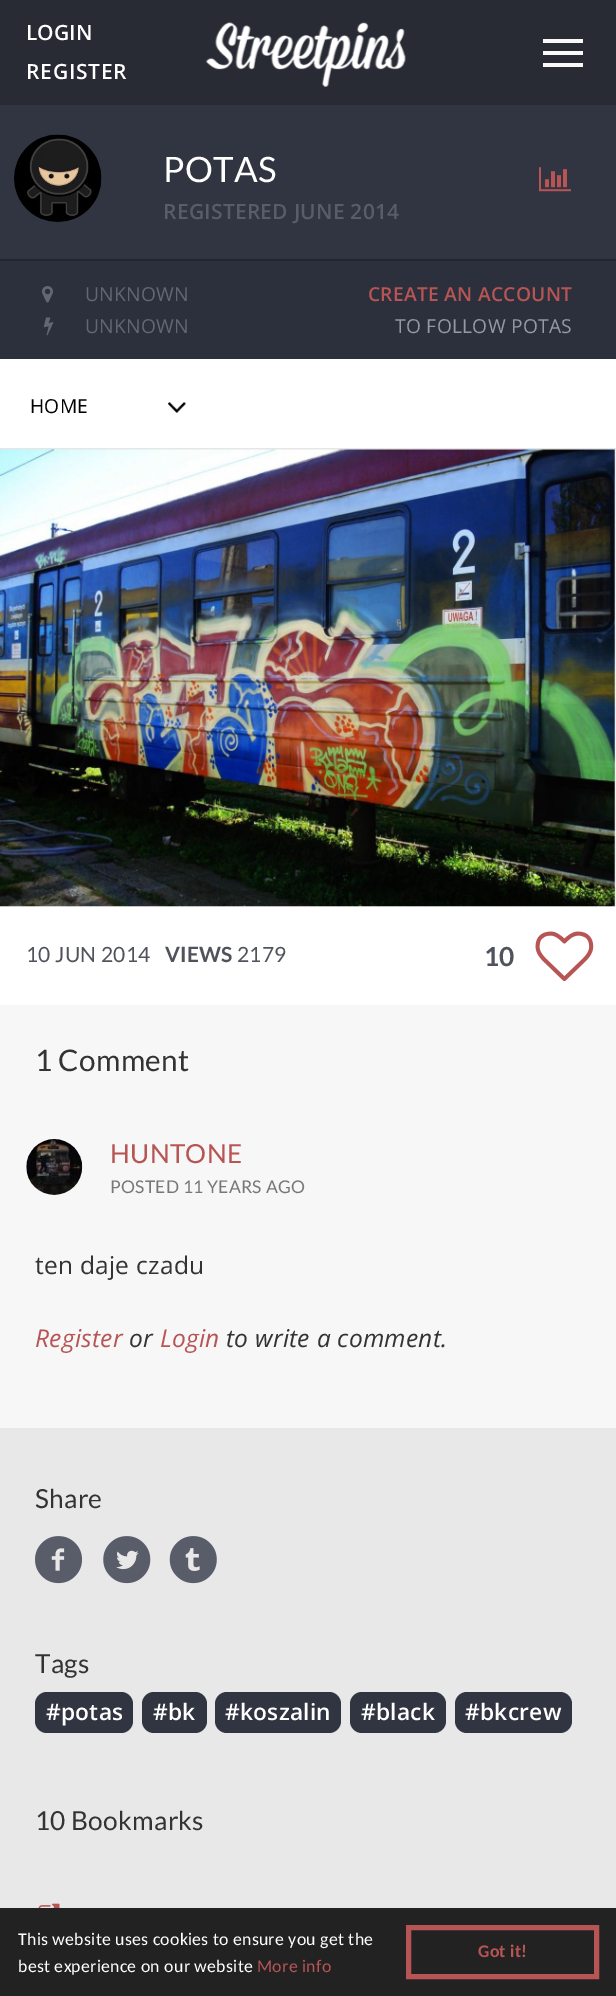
%!PS
<< /PageSize [616 1996] >> setpagedevice
/rgb { dup -16 bitshift 255 div exch dup -8 bitshift 255 and 255 div exch 255 and 255 div setrgbcolor } def
/font { [ exch dup neg 0 0 3 -1 roll 0 0 ] selectfont } def
/text { moveto show } def
/roundrect { 5 dict begin { /r /h /w /y /x } { exch def } forall
  x r add y moveto x w add y 2 copy h add r arct x w add y h add x 1 index r arct
  x y h add x y r arct x y 2 copy exch w add exch r arct closepath end } def
/picture { 5 dict begin { /h /w /y /x /name } { exch def } forall
  gsave x y translate w h scale
  w h 8 [w 0 0 h 0 0] name (r) file false 3 colorimage grestore end } def
0 1996 translate 1 -1 scale
4 setmiterlimit
/s1 { /OpenSans-SemiBold 21 font 16#FFFFFF rgb } def
16#F7F7F7 rgb
0 0 616 1996 rectfill
16#282B34 rgb
0 0 616 105 rectfill
s1
(LOGIN) 26 40 text
26 79 moveto 0.75 0 (REGISTER) ashow
(pic1.raw) 205 22 201 65 picture
16#F9F9F9 rgb
543 51 40 4 rectfill
543 39 40 4 rectfill
543 63 40 4 rectfill
16#313541 rgb
0 105 616 154 rectfill
(pic2.raw) 14 134 88 88 picture
/Lato-Regular 35 font
16#FFFFFF rgb
163 182 moveto 0.25 0 (POTAS) ashow
/OpenSans-SemiBold 21 font
16#5A5D66 rgb
163 219 moveto 0.25 0 (REGISTERED JUNE 2014) ashow
16#2C303C rgb
0 261 616 98 rectfill
16#222632 rgb
0 259 616 2 rectfill
(pic3.raw) 539 167 32 25 picture
(pic4.raw) 42 286 11 17 picture
/OpenSans-Regular 19.25 font
16#636773 rgb
85 301 moveto 0.25 0 (UNKNOWN) ashow
(pic5.raw) 43 317 11 19 picture
85 333 moveto 0.25 0 (UNKNOWN) ashow
/OpenSans-SemiBold 19.25 font
16#B75454 rgb
368 301 moveto 0.25 0 (CREATE AN ACCOUNT) ashow
/OpenSans-Regular 19.25 font
16#9599A5 rgb
395 333 moveto 0.25 0 (TO FOLLOW POTAS) ashow
16#FFFFFF rgb
0 359 616 89 rectfill
16#E6E6E6 rgb
0 448 616 2 rectfill
16#000000 rgb
30 413 moveto 0.25 0 (HOME) ashow
(pic6.raw) 168 402 18 11 picture
(pic7.raw) 0 449 616 458 picture
16#FFFFFF rgb
0 907 616 98 rectfill
/Lato-Regular 21 font
16#50535C rgb
26 962 moveto 0.25 0 (10 JUN 2014) ashow
/Lato-Bold 21 font
165 962 moveto 0.25 0 (VIEWS) ashow
/Lato-Regular 21 font
237 962 moveto 0.25 0 (2179) ashow
/Lato-Bold 26.25 font
484 966 moveto 0.25 0 (10) ashow
(pic8.raw) 535 931 59 50 picture
/Lato-Regular 29.75 font
16#333333 rgb
35 1071 moveto 0.25 0 (1 Comment) ashow
(pic9.raw) 26 1139 57 56 picture
/Lato-Regular 26.25 font
16#B75454 rgb
110 1163 moveto 0.25 0 (HUNTONE) ashow
/Lato-Regular 17.5 font
16#777777 rgb
110 1193 moveto 0.25 0 (POSTED 11 YEARS AGO) ashow
/OpenSans-Regular 24.5 font
16#333333 rgb
35 1274 moveto 0.25 0 (ten daje czadu) ashow
/OpenSans-Italic 24.5 font
16#B75454 rgb
35 1347 moveto 0.25 0 (Register) ashow
16#333333 rgb
129 1347 moveto 0.25 0 (or) ashow
16#B75454 rgb
160 1347 moveto 0.25 0 (Login) ashow
16#333333 rgb
226 1347 moveto 0.25 0 (to write a comment.) ashow
16#E8E8E8 rgb
0 1428 616 480 rectfill
/Lato-Regular 26.25 font
16#333333 rgb
35 1508 moveto 0.25 0 (Share) ashow
(pic10.raw) 35 1536 47 48 picture
(pic11.raw) 103 1536 48 48 picture
(pic12.raw) 169 1536 48 48 picture
35 1673 moveto 0.25 0 (Tags) ashow
16#313541 rgb
35 1692 98 41 12 roundrect fill
/OpenSans-SemiBold 22.75 font
16#FFFFFF rgb
46 1720 moveto 0.25 0 (#potas) ashow
16#313541 rgb
142 1692 65 41 12 roundrect fill
16#FFFFFF rgb
153 1720 moveto 0.25 0 (#bk) ashow
16#313541 rgb
215 1692 126 41 12 roundrect fill
16#FFFFFF rgb
225 1720 moveto 0.25 0 (#koszalin) ashow
16#313541 rgb
350 1692 96 41 12 roundrect fill
16#FFFFFF rgb
361 1720 moveto 0.25 0 (#black) ashow
16#313541 rgb
455 1692 117 41 12 roundrect fill
16#FFFFFF rgb
465 1720 moveto 0.25 0 (#bkcrew) ashow
/Lato-Regular 26.25 font
16#333333 rgb
35 1830 moveto 0.25 0 (10 Bookmarks) ashow
(pic13.raw) 38 1903 22 5 picture
16#222222 rgb
0 1908 616 88 rectfill
/Carlito-Regular 17.8 font
16#FFFFFF rgb
18 1945 moveto 0.25 0 (This website uses cookies to ensure you get the) ashow
18 1972 moveto 0.25 0 (best experience on our website) ashow
16#B75454 rgb
257 1972 moveto 0.25 0 (More info) ashow
5 setlinewidth
408.5 1927.5 188 49 rectstroke
/Carlito-Bold 17.8 font
478 1957 moveto 0.25 0 (Got it!) ashow
showpage
